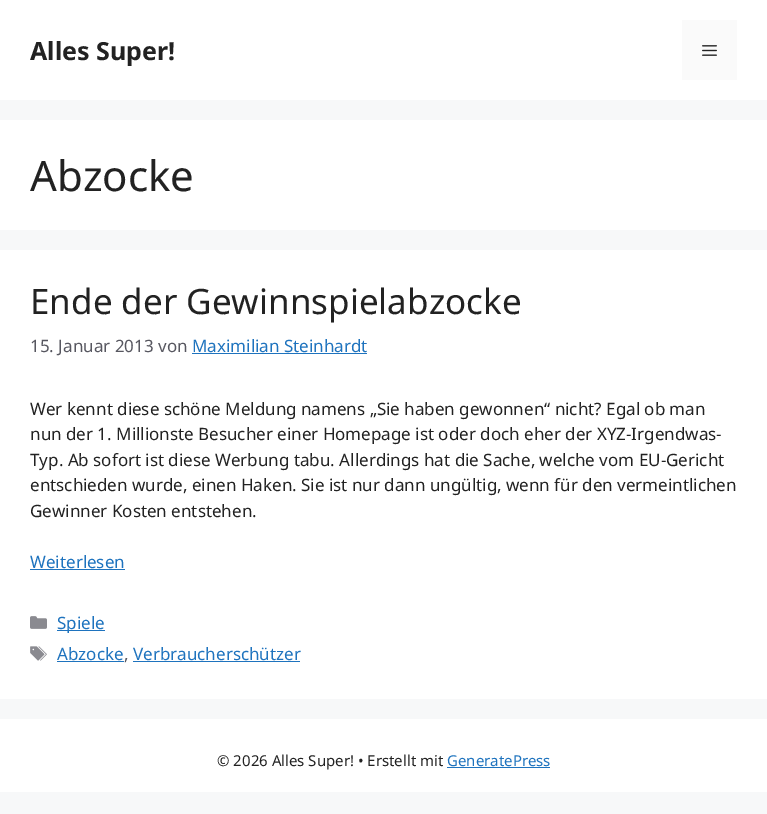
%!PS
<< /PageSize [767 814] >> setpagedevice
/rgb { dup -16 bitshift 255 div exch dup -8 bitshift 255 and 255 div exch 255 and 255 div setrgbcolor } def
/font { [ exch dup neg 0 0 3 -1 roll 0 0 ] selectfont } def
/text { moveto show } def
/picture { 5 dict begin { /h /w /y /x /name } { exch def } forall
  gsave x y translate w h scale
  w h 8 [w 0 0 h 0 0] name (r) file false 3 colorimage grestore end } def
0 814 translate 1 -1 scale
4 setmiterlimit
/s1 { /NotoSans-Bold 25 font 16#222222 rgb } def
/s2 { /NotoSans-Regular 42 font 16#222222 rgb } def
/s3 { /NotoSans-Regular 35 font 16#222222 rgb } def
/s4 { /NotoSans-Regular 17 font 16#575760 rgb } def
/s5 { /NotoSans-Regular 17 font 16#1E73BE rgb } def
/s6 { /NotoSans-Regular 17 font 16#222222 rgb } def
/s7 { /NotoSans-Regular 15 font 16#222222 rgb } def
/s8 { /NotoSans-Regular 15 font 16#1E73BE rgb } def
16#F7F8F9 rgb
0 0 767 814 rectfill
16#FFFFFF rgb
0 0 767 100 rectfill
s1
(Alles Super!) 30 60 text
16#FAFAFA rgb
682 20 55 60 rectfill
(pic1.raw) 702 45 15 11 picture
16#FFFFFF rgb
0 120 767 110 rectfill
s2
(Abzocke) 30 191 text
16#FFFFFF rgb
0 250 767 449 rectfill
s3
(Ende der Gewinnspielabzocke) 30 314 text
s4
(15. Januar 2013 von) 30 352 text
s5
(Maximilian Steinhardt) 192 352 text
192 353 175 1 rectfill
s6
(Wer kennt diese schöne Meldung namens „Sie haben gewonnen“ nicht? Egal ob man) 30 415 text
(nun der 1. Millionste Besucher einer Homepage ist oder doch eher der XYZ-Irgendwas-) 30 440 text
(Typ. Ab sofort ist diese Werbung tabu. Allerdings hat die Sache, welche vom EU-Gericht) 30 466 text
(entschieden wurde, einen Haken. Sie ist nur dann ungültig, wenn für den vermeintlichen) 30 491 text
(Gewinner Kosten entstehen.) 30 517 text
s5
(Weiterlesen) 30 568 text
30 569 95 1 rectfill
(pic2.raw) 30 616 17 13 picture
57 630 48 1 rectfill
(Spiele) 57 629 text
(pic3.raw) 30 646 17 15 picture
(Abzocke) 57 660 text
57 661 67 1 rectfill
s4
(,) 124 660 text
s5
(Verbraucherschützer) 133 660 text
133 661 167 1 rectfill
16#FFFFFF rgb
0 719 767 73 rectfill
s7
(© 2026 Alles Super! • Erstellt mit) 217 766 text
s8
(GeneratePress) 447 766 text
447 767 103 1 rectfill
showpage
